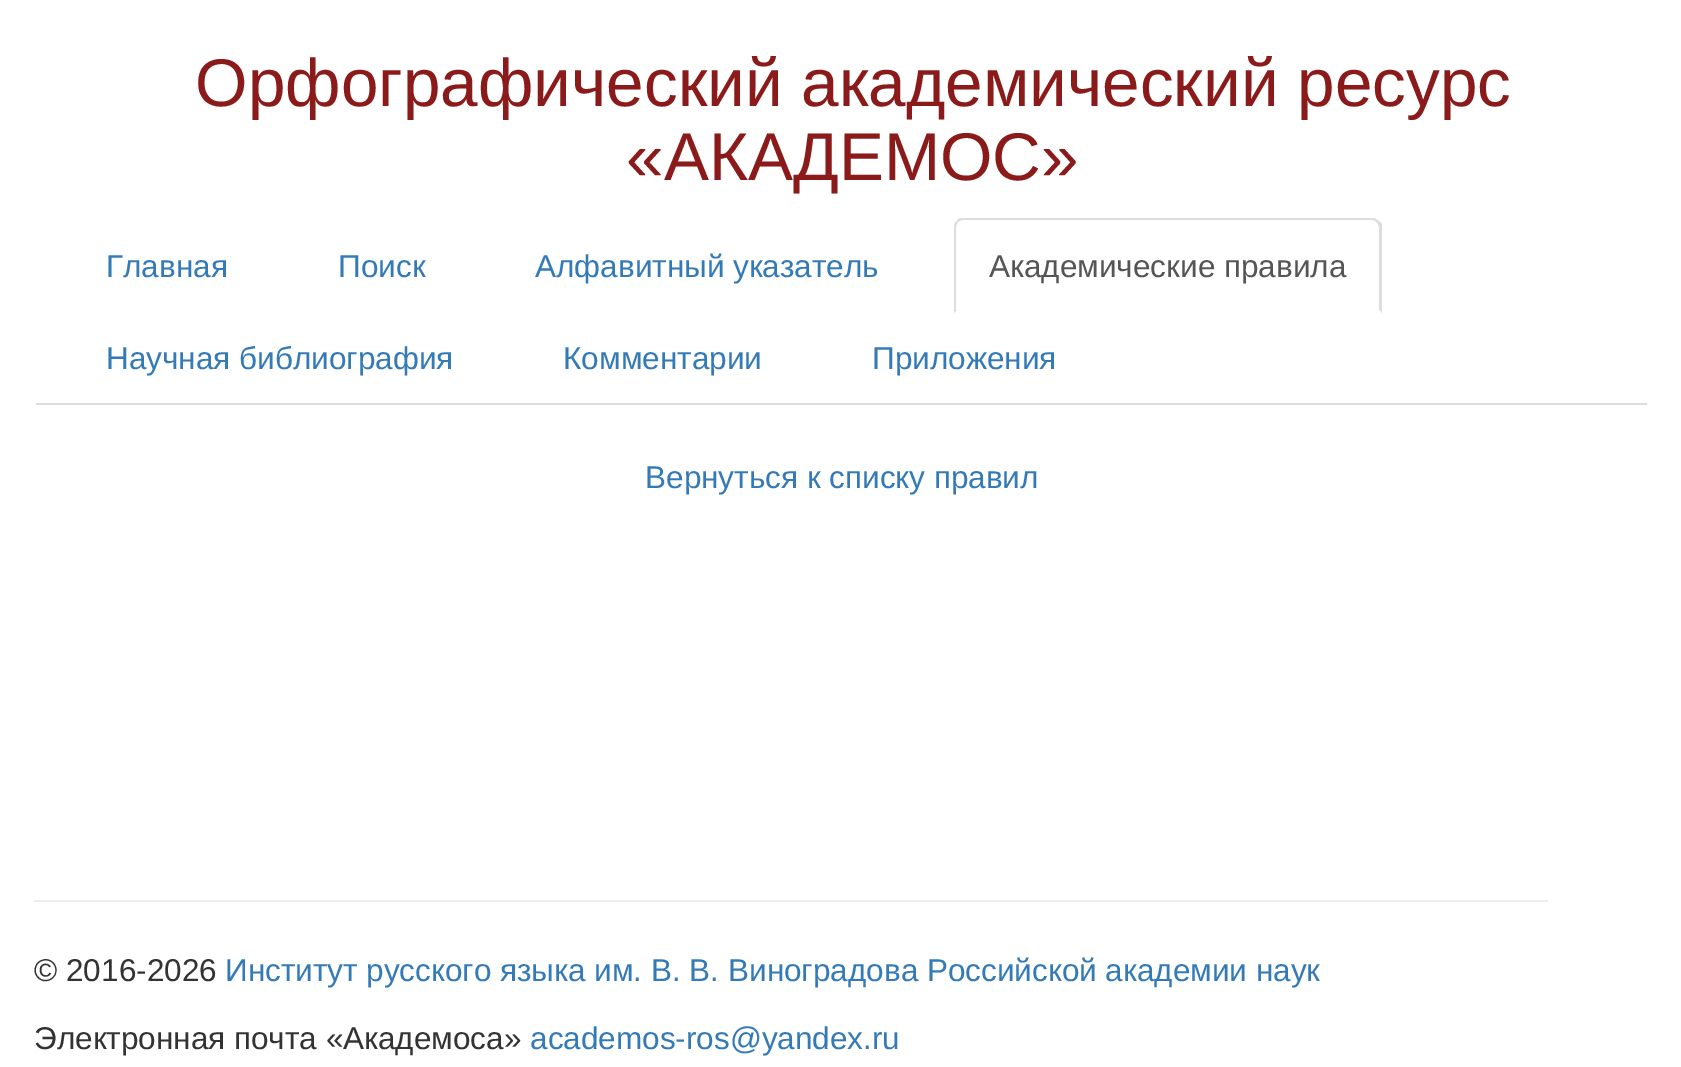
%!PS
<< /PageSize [1681 1067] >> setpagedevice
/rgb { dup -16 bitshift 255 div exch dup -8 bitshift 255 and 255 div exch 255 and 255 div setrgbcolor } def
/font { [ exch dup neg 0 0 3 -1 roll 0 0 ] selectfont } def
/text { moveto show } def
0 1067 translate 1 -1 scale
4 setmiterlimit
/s1 { /LiberationSans-Regular 67.5 font 16#8B1A1A rgb } def
/s2 { /LiberationSans-Regular 31.5 font 16#337AB7 rgb } def
/s3 { /LiberationSans-Regular 31.5 font 16#555555 rgb } def
/s4 { /LiberationSans-Regular 31.5 font 16#333333 rgb } def
16#FFFFFF rgb
0 0 1681 1067 rectfill
s1
(Орфографический академический ресурс) 195 106 text
(«АКАДЕМОС») 626 180 text
16#DDDDDD rgb
36 403 1611 2 rectfill
s2
(Главная) 106 277 text
(Поиск) 338 277 text
(Алфавитный указатель) 535 277 text
16#DDDDDD rgb
963 220 moveto 961 220 959 221 958 222 curveto 957 221 lineto 957 220 959 218 961 218 curveto 1374 218 lineto 1379 221 lineto 1377 223 lineto 1376 221 1374 220 1372 220 curveto closepath fill
1379 221 moveto 1382 224 lineto 1382 313 lineto 1379 310 lineto 1379 227 lineto 1379 226 1378 224 1377 223 curveto closepath fill
954 313 moveto 957 310 lineto 956 310 lineto 956 227 lineto 956 225 957 224 958 222 curveto 957 221 lineto 955 222 954 225 954 227 curveto closepath fill
s3
(Академические правила) 989 277 text
s2
(Научная библиография) 106 369 text
(Комментарии) 563 369 text
(Приложения) 872 369 text
(Вернуться к списку правил) 645 488 text
16#EEEEEE rgb
34 900 1514 2 rectfill
s4
(© 2016-2026) 34 981 text
s2
(Институт русского языка им. В. В. Виноградова Российской академии наук) 225 981 text
s4
(Электронная почта «Академоса») 34 1049 text
s2
(academos-ros@yandex.ru) 530 1049 text
showpage
